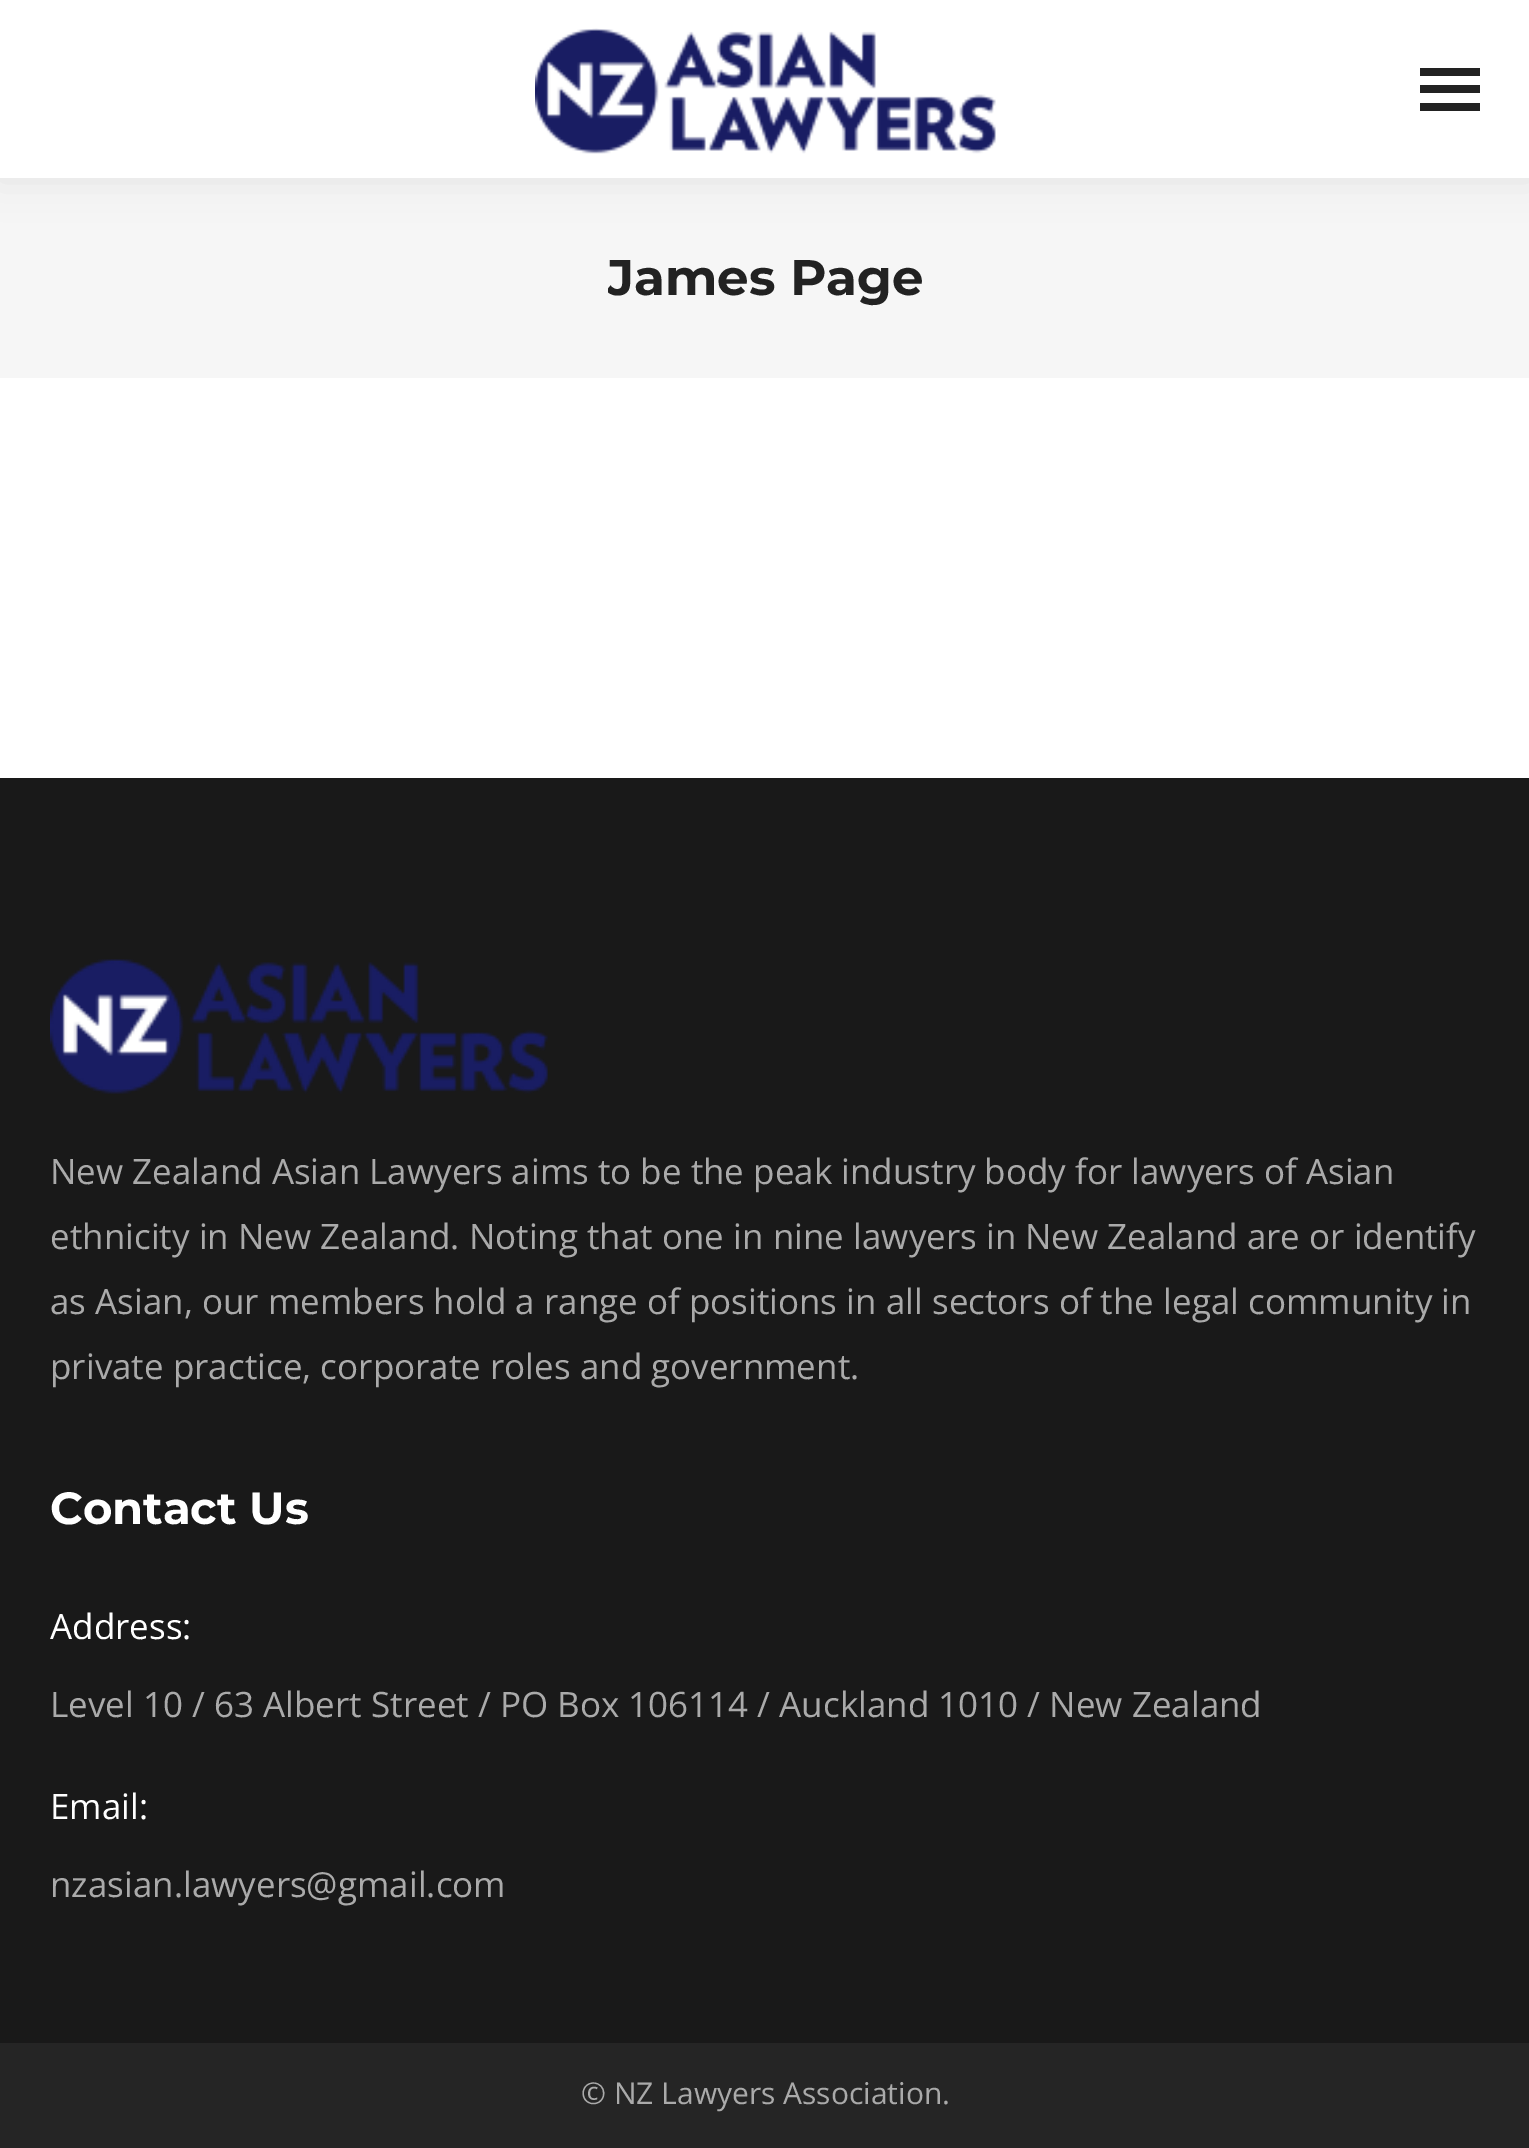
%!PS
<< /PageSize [1529 2148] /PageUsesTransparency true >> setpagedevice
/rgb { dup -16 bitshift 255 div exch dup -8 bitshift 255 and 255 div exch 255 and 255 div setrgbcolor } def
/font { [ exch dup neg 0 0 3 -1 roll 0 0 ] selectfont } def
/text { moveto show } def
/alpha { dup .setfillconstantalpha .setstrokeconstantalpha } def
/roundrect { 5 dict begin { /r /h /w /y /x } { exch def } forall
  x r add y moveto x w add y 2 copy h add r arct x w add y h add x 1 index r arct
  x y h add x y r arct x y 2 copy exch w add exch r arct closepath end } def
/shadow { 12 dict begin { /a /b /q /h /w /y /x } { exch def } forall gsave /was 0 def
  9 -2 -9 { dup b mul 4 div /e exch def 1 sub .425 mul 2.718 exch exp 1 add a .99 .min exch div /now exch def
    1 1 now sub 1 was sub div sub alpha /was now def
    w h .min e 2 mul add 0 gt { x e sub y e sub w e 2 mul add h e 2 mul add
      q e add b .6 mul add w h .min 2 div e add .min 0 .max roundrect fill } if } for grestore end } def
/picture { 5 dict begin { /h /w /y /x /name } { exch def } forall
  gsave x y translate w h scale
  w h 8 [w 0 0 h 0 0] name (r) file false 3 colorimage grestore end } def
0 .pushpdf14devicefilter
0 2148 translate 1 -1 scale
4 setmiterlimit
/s1 { /Montserrat-Bold 50 font 16#222222 rgb } def
/s2 { /OpenSans-Regular 35 font 16#AAAAAA rgb } def
/s3 { /Montserrat-Bold 45 font 16#FFFFFF rgb } def
/s4 { /OpenSans-Regular 35 font 16#FFFFFF rgb } def
/s5 { /OpenSans-Regular 30 font 16#AAAAAA rgb } def
16#FFFFFF rgb
0 0 1529 2148 rectfill
16#F6F6F6 rgb
0 178 1529 200 rectfill
16#000000 rgb
-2 -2 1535 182 0 19 0.07 shadow
16#FFFFFF rgb
0 0 1529 178 rectfill
(pic1.raw) 535 28 461 126 picture
16#222222 rgb
1420 68 60 8 rectfill
1420 85 60 8 rectfill
1420 103 60 8 rectfill
gsave
608 240 315 75 rectclip
s1
(James Page) 607 295 text
grestore
16#191919 rgb
0 778 1529 1265 rectfill
(pic2.raw) 50 959 498 135 picture
s2
(New Zealand Asian Lawyers aims to be the peak industry body for lawyers of Asian) 50 1184 text
(ethnicity in New Zealand. Noting that one in nine lawyers in New Zealand are or identify) 50 1249 text
(as Asian, our members hold a range of positions in all sectors of the legal community in) 50 1314 text
(private practice, corporate roles and government.) 50 1379 text
s3
(Contact Us) 50 1524 text
s4
(Address:) 50 1639 text
s2
(Level 10 / 63 Albert Street / PO Box 106114 / Auckland 1010 / New Zealand) 50 1717 text
s4
(Email:) 50 1819 text
s2
(nzasian.lawyers@gmail.com) 50 1897 text
16#252525 rgb
0 2043 1529 105 rectfill
s5
(© NZ Lawyers Association.) 581 2104 text
.poppdf14devicefilter showpage
